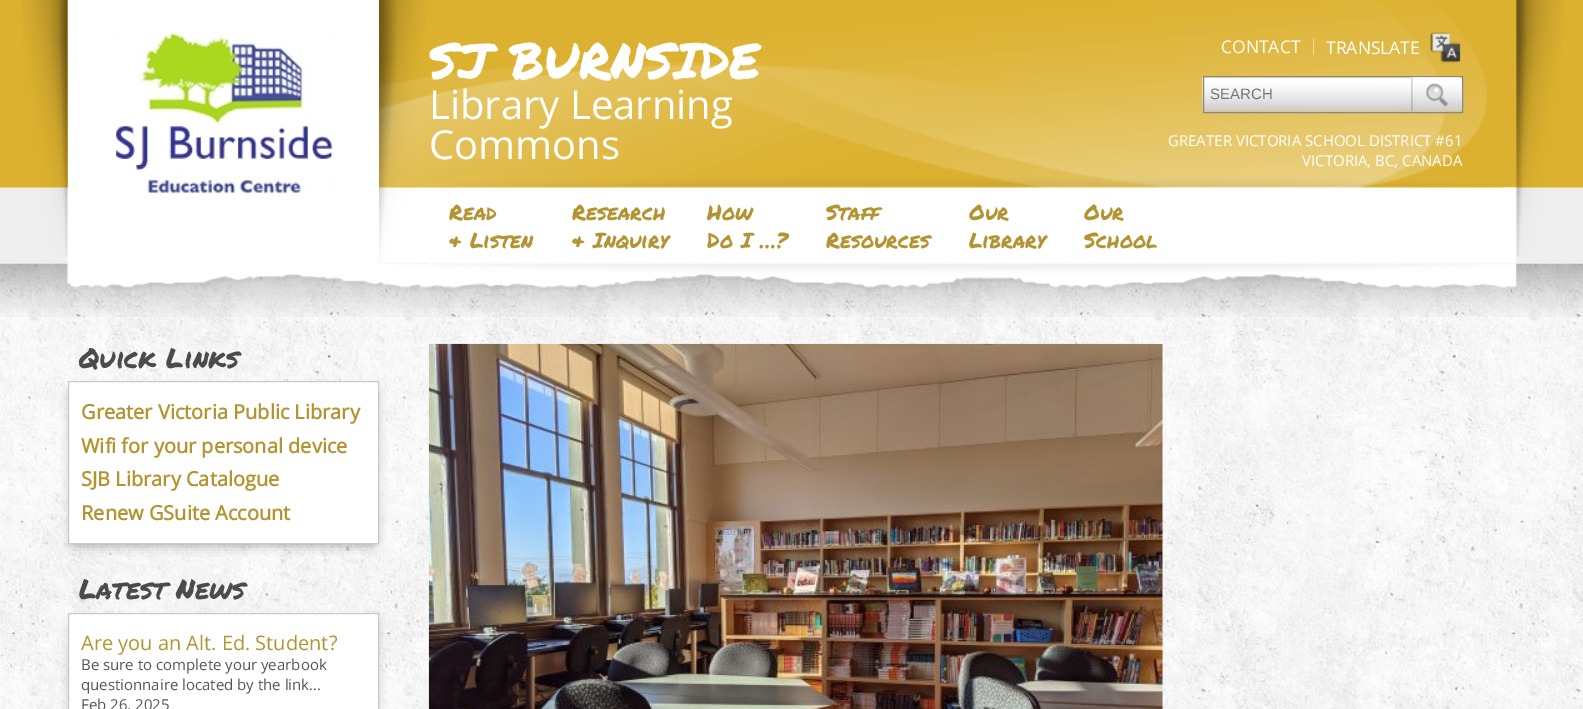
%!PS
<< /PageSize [1583 709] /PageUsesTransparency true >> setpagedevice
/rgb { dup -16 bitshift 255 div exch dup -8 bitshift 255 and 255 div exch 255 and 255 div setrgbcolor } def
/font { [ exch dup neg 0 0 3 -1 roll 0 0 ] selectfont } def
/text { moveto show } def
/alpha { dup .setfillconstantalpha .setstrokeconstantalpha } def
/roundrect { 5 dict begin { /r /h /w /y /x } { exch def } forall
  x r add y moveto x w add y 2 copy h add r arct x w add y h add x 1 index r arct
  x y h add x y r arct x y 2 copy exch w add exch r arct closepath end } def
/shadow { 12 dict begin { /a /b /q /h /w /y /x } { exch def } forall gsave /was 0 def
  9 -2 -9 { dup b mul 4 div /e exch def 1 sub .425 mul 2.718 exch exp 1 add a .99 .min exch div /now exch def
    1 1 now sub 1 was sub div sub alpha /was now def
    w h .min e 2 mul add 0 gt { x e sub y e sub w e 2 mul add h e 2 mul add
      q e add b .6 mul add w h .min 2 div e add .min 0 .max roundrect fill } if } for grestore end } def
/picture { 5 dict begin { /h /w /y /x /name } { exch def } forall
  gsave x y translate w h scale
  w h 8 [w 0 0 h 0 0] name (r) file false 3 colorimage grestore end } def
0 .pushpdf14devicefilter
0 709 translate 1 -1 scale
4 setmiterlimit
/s1 { /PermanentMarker-Regular 50 font 16#FFFFFF rgb } def
/s2 { /OpenSans-Regular 40 font 16#FFFFFF rgb } def
/s3 { /OpenSans-Regular 17.5 font 16#FFFFFF rgb } def
/s4 { /LiberationSans-Regular 15 font 16#757575 rgb } def
/s5 { /OpenSans-Regular 15 font 16#FFFFFF rgb } def
/s6 { /PermanentMarker-Regular 21.25 font 16#B39432 rgb } def
/s7 { /PermanentMarker-Regular 27.5 font 16#4B4B4B rgb } def
/s8 { /OpenSans-Bold 20 font 16#B39432 rgb } def
/s9 { /OpenSans-Regular 20 font 16#B39432 rgb } def
/s10 { /OpenSans-Regular 15 font 16#565656 rgb } def
16#FFFFFF rgb
0 0 1583 709 rectfill
(pic1.raw) 0 263 1583 446 picture
(pic2.raw) 0 0 1583 317 picture
(pic3.raw) 21 0 1543 257 picture
(pic4.raw) 67 263 1450 29 picture
(pic5.raw) 67 0 1450 264 picture
(pic6.raw) 379 0 49 264 picture
68 0 311 264 rectfill
(pic7.raw) 115 32 218 162 picture
s1
(SJ BURNSIDE) 429 79 text
s2
(Library Learning) 429 119 text
(Commons) 429 159 text
0.5 alpha
1313 38 1 17 rectfill
1 alpha
s3
(CONTACT) 1221 53 text
(TRANSLATE) 1326 54 text
(pic8.raw) 1430 32 31 31 picture
(pic9.raw) 1202 77 260 35 picture
16#888888 rgb
1203.5 76.5 259 36 rectstroke
s4
(SEARCH) 1210 99 text
(pic10.raw) 1411 77 49 35 picture
s5
(GREATER VICTORIA SCHOOL DISTRICT #61) 1168 146 text
(VICTORIA, BC, CANADA) 1302 166 text
429 263 1 1 rectfill
s6
(Read) 449 220 text
(& Listen) 449 248 text
16#FFFFFF rgb
553 263 1 1 rectfill
s6
(Research) 572 220 text
(& Inquiry) 572 248 text
16#FFFFFF rgb
688 263 1 1 rectfill
s6
(How) 707 220 text
(Do I …?) 707 248 text
16#FFFFFF rgb
806 263 1 1 rectfill
s6
(Staff) 826 220 text
(Resources) 826 248 text
16#FFFFFF rgb
949 263 1 1 rectfill
s6
(Our) 969 220 text
(Library) 969 248 text
16#FFFFFF rgb
1064 263 1 1 rectfill
s6
(Our) 1084 220 text
(School) 1084 248 text
s7
(Quick Links) 79 368 text
16#000000 rgb
74 393 299 150 0 6 0.5 shadow
16#FFFFFF rgb
68.5 381.5 moveto 378.5 381.5 lineto 378.5 543.5 lineto 68.5 543.5 lineto closepath gsave fill grestore
16#CBCBCB rgb
stroke
s8
(Greater Victoria Public Library) 81 419 text
(Wifi for your personal device) 81 453 text
(SJB Library Catalogue) 81 486 text
(Renew GSuite Account) 81 520 text
s7
(Latest News) 79 599 text
16#000000 rgb
74 624 299 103 0 6 0.5 shadow
16#FFFFFF rgb
68.5 613.5 moveto 378.5 613.5 lineto 378.5 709.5 lineto 68.5 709.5 lineto closepath gsave fill grestore
16#CBCBCB rgb
stroke
s9
(Are you an Alt. Ed. Student?) 81 650 text
s10
(Be sure to complete your yearbook) 81 670 text
(questionnaire located by the link...) 81 690 text
(Feb 26, 2025) 81 710 text
(pic11.raw) 428 343 735 366 picture
.poppdf14devicefilter showpage
